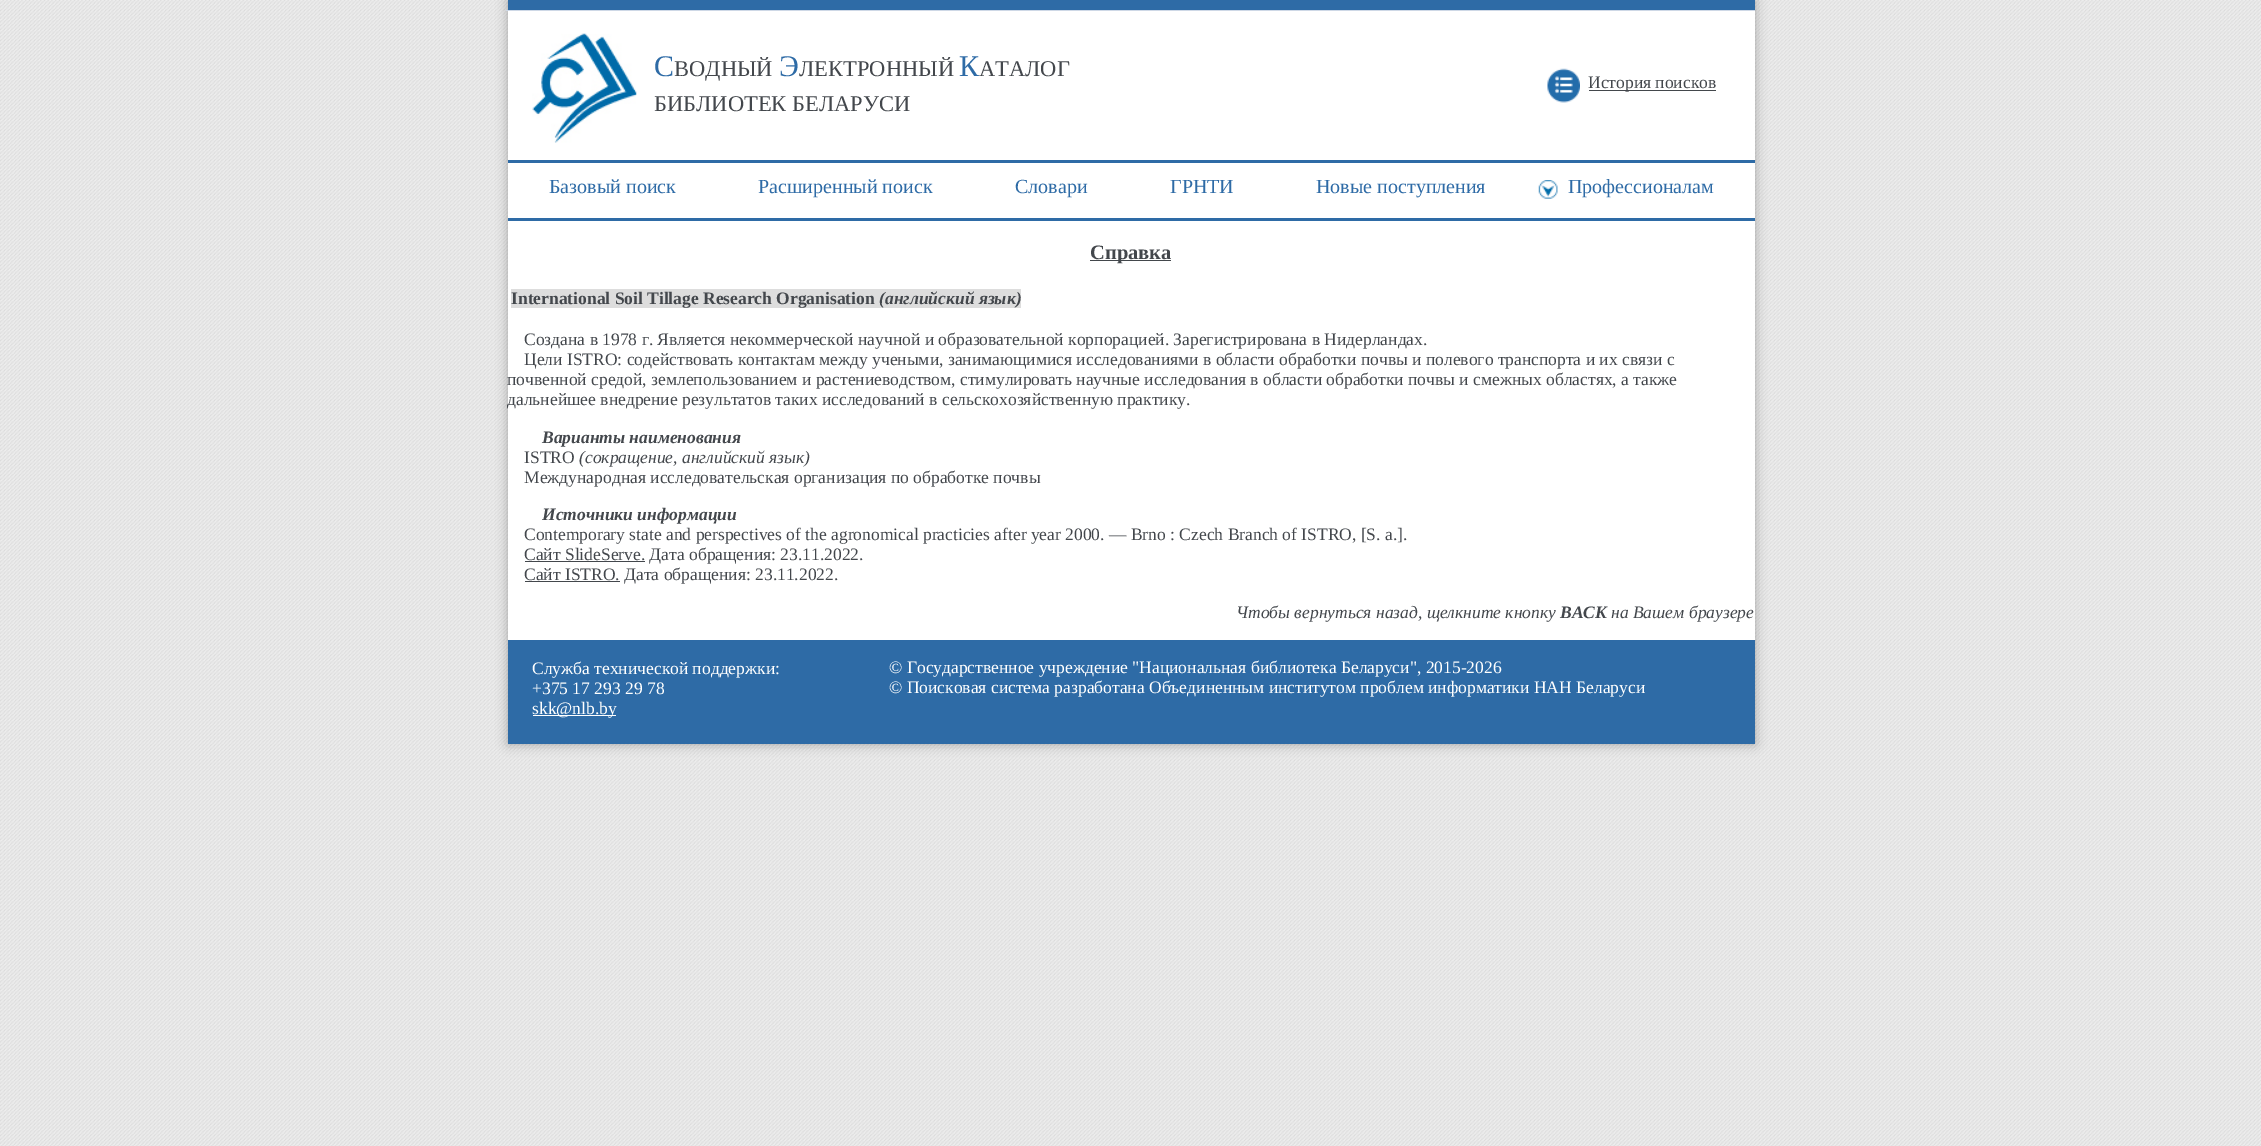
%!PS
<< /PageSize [2261 1146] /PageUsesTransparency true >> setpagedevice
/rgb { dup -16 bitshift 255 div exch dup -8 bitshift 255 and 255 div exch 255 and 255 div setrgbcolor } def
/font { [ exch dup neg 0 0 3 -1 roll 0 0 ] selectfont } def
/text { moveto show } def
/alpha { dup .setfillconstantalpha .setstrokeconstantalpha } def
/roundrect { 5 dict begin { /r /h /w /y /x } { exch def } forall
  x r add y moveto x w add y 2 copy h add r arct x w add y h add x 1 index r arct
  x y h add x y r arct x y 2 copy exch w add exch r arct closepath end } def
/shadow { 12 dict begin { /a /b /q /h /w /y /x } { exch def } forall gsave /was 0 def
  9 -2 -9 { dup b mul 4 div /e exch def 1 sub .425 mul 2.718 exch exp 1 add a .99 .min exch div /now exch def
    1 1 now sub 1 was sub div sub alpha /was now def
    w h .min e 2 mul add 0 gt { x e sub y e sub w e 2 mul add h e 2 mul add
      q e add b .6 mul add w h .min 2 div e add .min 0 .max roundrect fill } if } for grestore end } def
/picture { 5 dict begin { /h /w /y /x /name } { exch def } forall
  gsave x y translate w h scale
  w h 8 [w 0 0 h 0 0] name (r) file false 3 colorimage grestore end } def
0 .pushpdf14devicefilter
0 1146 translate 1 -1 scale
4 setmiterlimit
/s1 { /LiberationSerif-Regular 30 font 16#2E6BA6 rgb } def
/s2 { /LiberationSerif-Regular 22.5 font 16#43474C rgb } def
/s3 { /LiberationSerif-Regular 17.5 font 16#43474C rgb } def
/s4 { /LiberationSerif-Regular 20 font 16#2E6BA6 rgb } def
/s5 { /LiberationSerif-Bold 20.5 font 16#43474C rgb } def
/s6 { /LiberationSerif-Bold 17.5 font 16#43474C rgb } def
/s7 { /LiberationSerif-BoldItalic 17.5 font 16#43474C rgb } def
/s8 { /LiberationSerif-Italic 17.5 font 16#43474C rgb } def
/s9 { /LiberationSerif-Regular 17.5 font 16#FFFFFF rgb } def
16#FFFFFF rgb
0 0 2261 1146 rectfill
(pic1.raw) 0 0 2261 1146 picture
16#000000 rgb
508 0 1247 744 0 6 0.3 shadow
16#FFFFFF rgb
508 11 1247 629 rectfill
16#2E6BA6 rgb
508 0 1247 10 rectfill
16#CED8E6 rgb
506 10 1249 1 rectfill
(pic2.raw) 532 33 105 110 picture
s1
(С) 654 76 text
s2
(ВОДНЫЙ) 674 76 text
s1
(Э) 779 76 text
s2
(ЛЕКТРОННЫЙ) 799 76 text
s1
(К) 959 76 text
s2
(АТАЛОГ) 979 76 text
(БИБЛИОТЕК БЕЛАРУСИ) 654 111 text
(pic3.raw) 1547 68 33 35 picture
1589 90 127 1 rectfill
s3
(История поисков) 1588 88 text
16#2E6BA6 rgb
508 160 1247 3 rectfill
508 218 1247 3 rectfill
s4
(Базовый поиск) 549 193 text
(Расширенный поиск) 758 193 text
(Cловари) 1015 193 text
(ГРНТИ) 1170 193 text
(Новые поступления) 1316 193 text
(pic4.raw) 1538 180 20 19 picture
(Профессионалам) 1568 193 text
16#43474C rgb
1090 260 81 1 rectfill
s5
(Справка) 1090 259 text
16#DDDDDD rgb
511 289 510 19 rectfill
s6
(International Soil Tillage Research Organisation) 511 304 text
s7
(\(английский язык\)) 879 304 text
s3
(Создана в 1978 г. Является некоммерческой научной и образовательной корпорацией. Зарегистрирована в Нидерландах.) 524 345 text
(Цели ISTRO: содействовать контактам между учеными, занимающимися исследованиями в области обработки почвы и полевого транспорта и их связи с) 524 365 text
(почвенной средой, землепользованием и растениеводством, стимулировать научные исследования в области обработки почвы и смежных областях, а также) 507 385 text
(дальнейшее внедрение результатов таких исследований в сельскохозяйственную практику.) 507 405 text
s7
(Варианты наименования) 542 443 text
s3
(ISTRO) 524 463 text
s8
(\(сокращение, английский язык\)) 579 463 text
s3
(Международная исследовательская организация по обработке почвы) 524 483 text
s7
(Источники информации) 542 520 text
s3
(Contemporary state and perspectives of the agronomical practicies after year 2000. ― Brno : Czech Branch of ISTRO, [S. a.].) 524 540 text
525 561 120 1 rectfill
(Сайт SlideServe. Дата обращения: 23.11.2022.) 524 560 text
525 581 95 1 rectfill
(Сайт ISTRO. Дата обращения: 23.11.2022.) 524 580 text
s8
(Чтобы вернуться назад, щелкните кнопку) 1236 618 text
s7
(BACK) 1560 618 text
s8
(на Вашем браузере) 1611 618 text
16#2E6BA6 rgb
508 640 1247 104 rectfill
s9
(Служба технической поддержки:) 532 674 text
(+375 17 293 29 78) 532 694 text
533 715 83 1 rectfill
(skk@nlb.by) 532 714 text
(© Государственное учреждение "Национальная библиотека Беларуси", 2015-2026) 889 673 text
(© Поисковая система разработана Объединенным институтом проблем информатики НАН Беларуси) 889 693 text
.poppdf14devicefilter showpage
